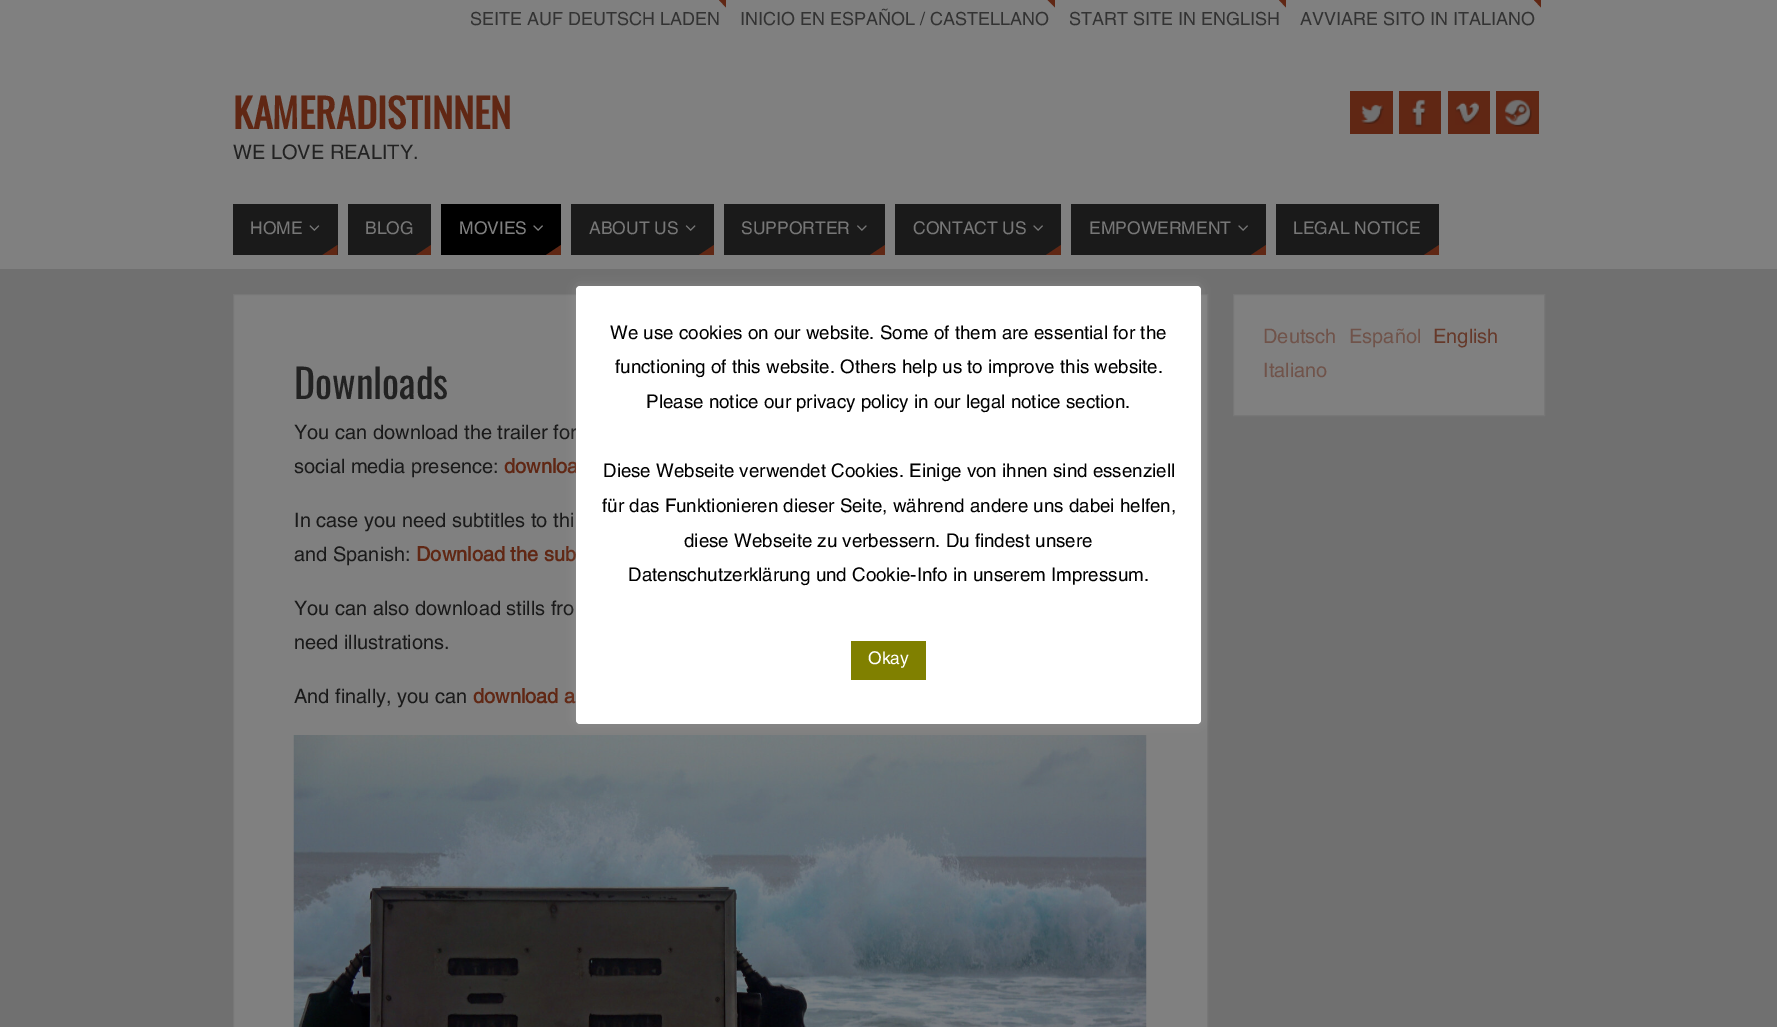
%!PS
<< /PageSize [1777 1027] /PageUsesTransparency true >> setpagedevice
/rgb { dup -16 bitshift 255 div exch dup -8 bitshift 255 and 255 div exch 255 and 255 div setrgbcolor } def
/font { [ exch dup neg 0 0 3 -1 roll 0 0 ] selectfont } def
/text { moveto show } def
/alpha { dup .setfillconstantalpha .setstrokeconstantalpha } def
/roundrect { 5 dict begin { /r /h /w /y /x } { exch def } forall
  x r add y moveto x w add y 2 copy h add r arct x w add y h add x 1 index r arct
  x y h add x y r arct x y 2 copy exch w add exch r arct closepath end } def
/shadow { 12 dict begin { /a /b /q /h /w /y /x } { exch def } forall gsave /was 0 def
  9 -2 -9 { dup b mul 4 div /e exch def 1 sub .425 mul 2.718 exch exp 1 add a .99 .min exch div /now exch def
    1 1 now sub 1 was sub div sub alpha /was now def
    w h .min e 2 mul add 0 gt { x e sub y e sub w e 2 mul add h e 2 mul add
      q e add b .6 mul add w h .min 2 div e add .min 0 .max roundrect fill } if } for grestore end } def
/picture { 5 dict begin { /h /w /y /x /name } { exch def } forall
  gsave x y translate w h scale
  w h 8 [w 0 0 h 0 0] name (r) file false 3 colorimage grestore end } def
0 .pushpdf14devicefilter
0 1027 translate 1 -1 scale
4 setmiterlimit
/s1 { /Helvetica-Regular 18 font 16#333333 rgb } def
/s2 { /Oswald-Bold 40 font 16#602714 rgb } def
/s3 { /Helvetica-Regular 20 font 16#222222 rgb } def
/s4 { /Helvetica-Regular 17.5 font 16#777777 rgb } def
/s5 { /Helvetica-Regular 17.5 font 16#808080 rgb } def
/s6 { /Helvetica-Regular 20 font 16#70534A rgb } def
/s7 { /Helvetica-Regular 20 font 16#66392A rgb } def
/s8 { /Oswald-Regular 40 font 16#222222 rgb } def
/s9 { /Helvetica-Regular 20 font 16#1A1A1A rgb } def
/s10 { /Helvetica-Bold 20 font 16#602714 rgb } def
/s11 { /Helvetica-Regular 18.75 font 16#000000 rgb } def
/s12 { /Helvetica-Regular 17.5 font 16#FFFFFF rgb } def
16#707070 rgb
0 0 1777 1027 rectfill
16#808080 rgb
0 0 1777 269 rectfill
16#602714 rgb
719 0 moveto 726 0 lineto 726 7.5 lineto closepath fill
s1
(SEITE AUF DEUTSCH LADEN) 470 25 text
16#602714 rgb
1047.5 0 moveto 1055 0 lineto 1055 7.5 lineto closepath fill
s1
(INICIO EN ESPAÑOL / CASTELLANO) 740 25 text
16#602714 rgb
1279 0 moveto 1286 0 lineto 1286 7.5 lineto closepath fill
s1
(START SITE IN ENGLISH) 1069 25 text
16#602714 rgb
1534 0 moveto 1541 0 lineto 1541 7.5 lineto closepath fill
s1
(AVVIARE SITO IN ITALIANO) 1300 25 text
s2
(KAMERADISTINNEN) 233 129 text
s3
(WE LOVE REALITY.) 233 159 text
16#602714 rgb
1350 91 43 43 rectfill
(pic1.raw) 1361 104 23 20 picture
1399 91 42 43 rectfill
(pic2.raw) 1411 99 15 29 picture
1448 91 42 43 rectfill
(pic3.raw) 1455 102 25 23 picture
1496 91 43 43 rectfill
(pic4.raw) 1504 99 28 28 picture
16#1A1A1A rgb
233 204 105 51 rectfill
s4
(HOME) 250 234 text
(pic5.raw) 309 225 11 6 picture
16#602714 rgb
337.5 255 moveto 322.5 255 lineto 337.5 245 lineto closepath fill
16#1A1A1A rgb
348 204 83 51 rectfill
s4
(BLOG) 365 234 text
16#602714 rgb
431 255 moveto 416 255 lineto 431 245 lineto closepath fill
16#000000 rgb
441 204 120 51 rectfill
s5
(MOVIES) 459 234 text
(pic6.raw) 533 225 10 6 picture
16#602714 rgb
561 255 moveto 546 255 lineto 561 245 lineto closepath fill
16#1A1A1A rgb
571 204 143 51 rectfill
s4
(ABOUT US) 589 234 text
(pic7.raw) 685 225 11 6 picture
16#602714 rgb
714 255 moveto 699 255 lineto 714 245 lineto closepath fill
16#1A1A1A rgb
724 204 161 51 rectfill
s4
(SUPPORTER) 741 234 text
(pic8.raw) 857 225 10 6 picture
16#602714 rgb
885 255 moveto 870 255 lineto 885 245 lineto closepath fill
16#1A1A1A rgb
895 204 166 51 rectfill
s4
(CONTACT US) 913 234 text
(pic9.raw) 1033 225 10 6 picture
16#602714 rgb
1061 255 moveto 1046 255 lineto 1061 245 lineto closepath fill
16#1A1A1A rgb
1071 204 195 51 rectfill
s4
(EMPOWERMENT) 1089 234 text
(pic9.raw) 1238 225 10 6 picture
16#602714 rgb
1266 255 moveto 1251 255 lineto 1266 245 lineto closepath fill
16#1A1A1A rgb
1276 204 163 51 rectfill
s4
(LEGAL NOTICE) 1293 234 text
16#602714 rgb
1439 255 moveto 1424 255 lineto 1439 245 lineto closepath fill
16#808080 rgb
1233.5 294.5 moveto 1544.5 294.5 lineto 1544.5 415.5 lineto 1233.5 415.5 lineto closepath gsave fill grestore
16#777777 rgb
stroke
s6
(Deutsch) 1263 343 text
(Español) 1349 343 text
s7
(English) 1433 343 text
s6
(Italiano) 1263 377 text
16#808080 rgb
233.5 294.5 moveto 1207.5 294.5 lineto 1207.5 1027.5 lineto 233.5 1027.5 lineto closepath gsave fill grestore
16#777777 rgb
stroke
s8
(Downloads) 294 399 text
s9
(You can download the trailer for) 294 439 text
(social media presence:) 294 473 text
s10
(downloa) 504 473 text
s9
(In case you need subtitles to thi) 294 527 text
(and Spanish:) 294 561 text
s10
(Download the sub) 416 561 text
s9
(You can also download stills fro) 294 615 text
(need illustrations.) 294 649 text
(And finally, you can) 294 703 text
s10
(download a) 473 703 text
(pic10.raw) 293 735 854 292 picture
16#ACABAB rgb
576 285 625 438 4 6 0.3 shadow
16#FFFFFF rgb
576 286 625 438 4 roundrect fill
s11
(We use cookies on our website. Some of them are essential for the) 610 339 text
(functioning of this website. Others help us to improve this website.) 615 373 text
(Please notice our privacy policy in our legal notice section.) 646 408 text
(Diese Webseite verwendet Cookies. Einige von ihnen sind essenziell) 603 477 text
(für das Funktionieren dieser Seite, während andere uns dabei helfen,) 602 512 text
(diese Webseite zu verbessern. Du findest unsere) 684 547 text
(Datenschutzerklärung und Cookie-Info in unserem Impressum.) 628 581 text
16#808000 rgb
851 641 75 39 rectfill
s12
(Okay) 868 664 text
.poppdf14devicefilter showpage
